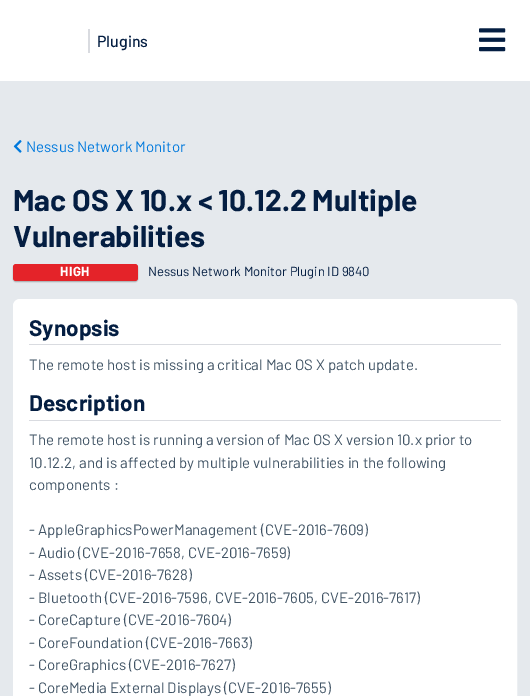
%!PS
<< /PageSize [530 696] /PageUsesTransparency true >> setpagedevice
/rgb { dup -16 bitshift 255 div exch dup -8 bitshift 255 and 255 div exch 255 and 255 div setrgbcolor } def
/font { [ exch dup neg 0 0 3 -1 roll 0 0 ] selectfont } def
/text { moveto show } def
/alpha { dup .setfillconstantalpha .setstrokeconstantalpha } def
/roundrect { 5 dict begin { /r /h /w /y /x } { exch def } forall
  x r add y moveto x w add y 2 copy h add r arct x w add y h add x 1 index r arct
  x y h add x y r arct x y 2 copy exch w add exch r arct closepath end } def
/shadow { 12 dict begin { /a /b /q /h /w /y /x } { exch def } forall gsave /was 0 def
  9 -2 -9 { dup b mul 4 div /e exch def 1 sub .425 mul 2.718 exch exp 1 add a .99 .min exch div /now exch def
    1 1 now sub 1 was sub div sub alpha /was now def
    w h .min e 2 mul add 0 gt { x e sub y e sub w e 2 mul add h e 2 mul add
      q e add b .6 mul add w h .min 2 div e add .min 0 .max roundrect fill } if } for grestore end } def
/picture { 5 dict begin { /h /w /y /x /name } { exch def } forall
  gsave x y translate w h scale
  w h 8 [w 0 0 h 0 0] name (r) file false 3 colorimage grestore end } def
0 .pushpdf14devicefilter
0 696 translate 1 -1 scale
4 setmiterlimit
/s1 { /Barlow-Medium 16 font 16#041E42 rgb } def
/s2 { /Barlow-Regular 15 font 16#0079DD rgb } def
/s3 { /Barlow-Bold 30 font 16#041E42 rgb } def
/s4 { /Barlow-Regular 13.1 font 16#041E42 rgb } def
/s5 { /Barlow-Bold 22.5 font 16#041E42 rgb } def
/s6 { /Barlow-Regular 15 font 16#415465 rgb } def
16#FFFFFF rgb
0 0 530 696 rectfill
16#D9DBE0 rgb
88 29 2 24 rectfill
s1
(Plugins) 97 47 text
(pic1.raw) 479 28 27 24 picture
16#E5E9ED rgb
0 81 530 615 rectfill
(pic2.raw) 13 140 9 13 picture
s2
(Nessus Network Monitor) 26 152 text
s3
(Mac OS X 10.x < 10.12.2 Multiple) 13 211 text
(Vulnerabilities) 13 247 text
16#000000 rgb
13 265 125 17 3 0.5 0.25 shadow
16#E42329 rgb
13 264 125 17 3 roundrect fill
/Barlow-Bold 13.1 font
16#FFFFFF rgb
60 276 moveto 0.5 0 (HIGH) ashow
s4
(Nessus Network Monitor Plugin ID 9840) 148 276 text
16#FFFFFF rgb
13.5 299.5 503 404 6.5 roundrect gsave fill grestore
stroke
16#D9DBE0 rgb
29 344 472 1 rectfill
s5
(Synopsis) 29 336 text
s6
(The remote host is missing a critical Mac OS X patch update.) 29 370 text
16#D9DBE0 rgb
29 420 472 1 rectfill
s5
(Description) 29 411 text
s6
(The remote host is running a version of Mac OS X version 10.x prior to) 29 445 text
(10.12.2, and is affected by multiple vulnerabilities in the following) 29 468 text
(components :) 29 490 text
(- AppleGraphicsPowerManagement \(CVE-2016-7609\)) 29 535 text
(- Audio \(CVE-2016-7658, CVE-2016-7659\)) 29 558 text
(- Assets \(CVE-2016-7628\)) 29 580 text
(- Bluetooth \(CVE-2016-7596, CVE-2016-7605, CVE-2016-7617\)) 29 603 text
(- CoreCapture \(CVE-2016-7604\)) 29 625 text
(- CoreFoundation \(CVE-2016-7663\)) 29 648 text
(- CoreGraphics \(CVE-2016-7627\)) 29 670 text
(- CoreMedia External Displays \(CVE-2016-7655\)) 29 693 text
.poppdf14devicefilter showpage
